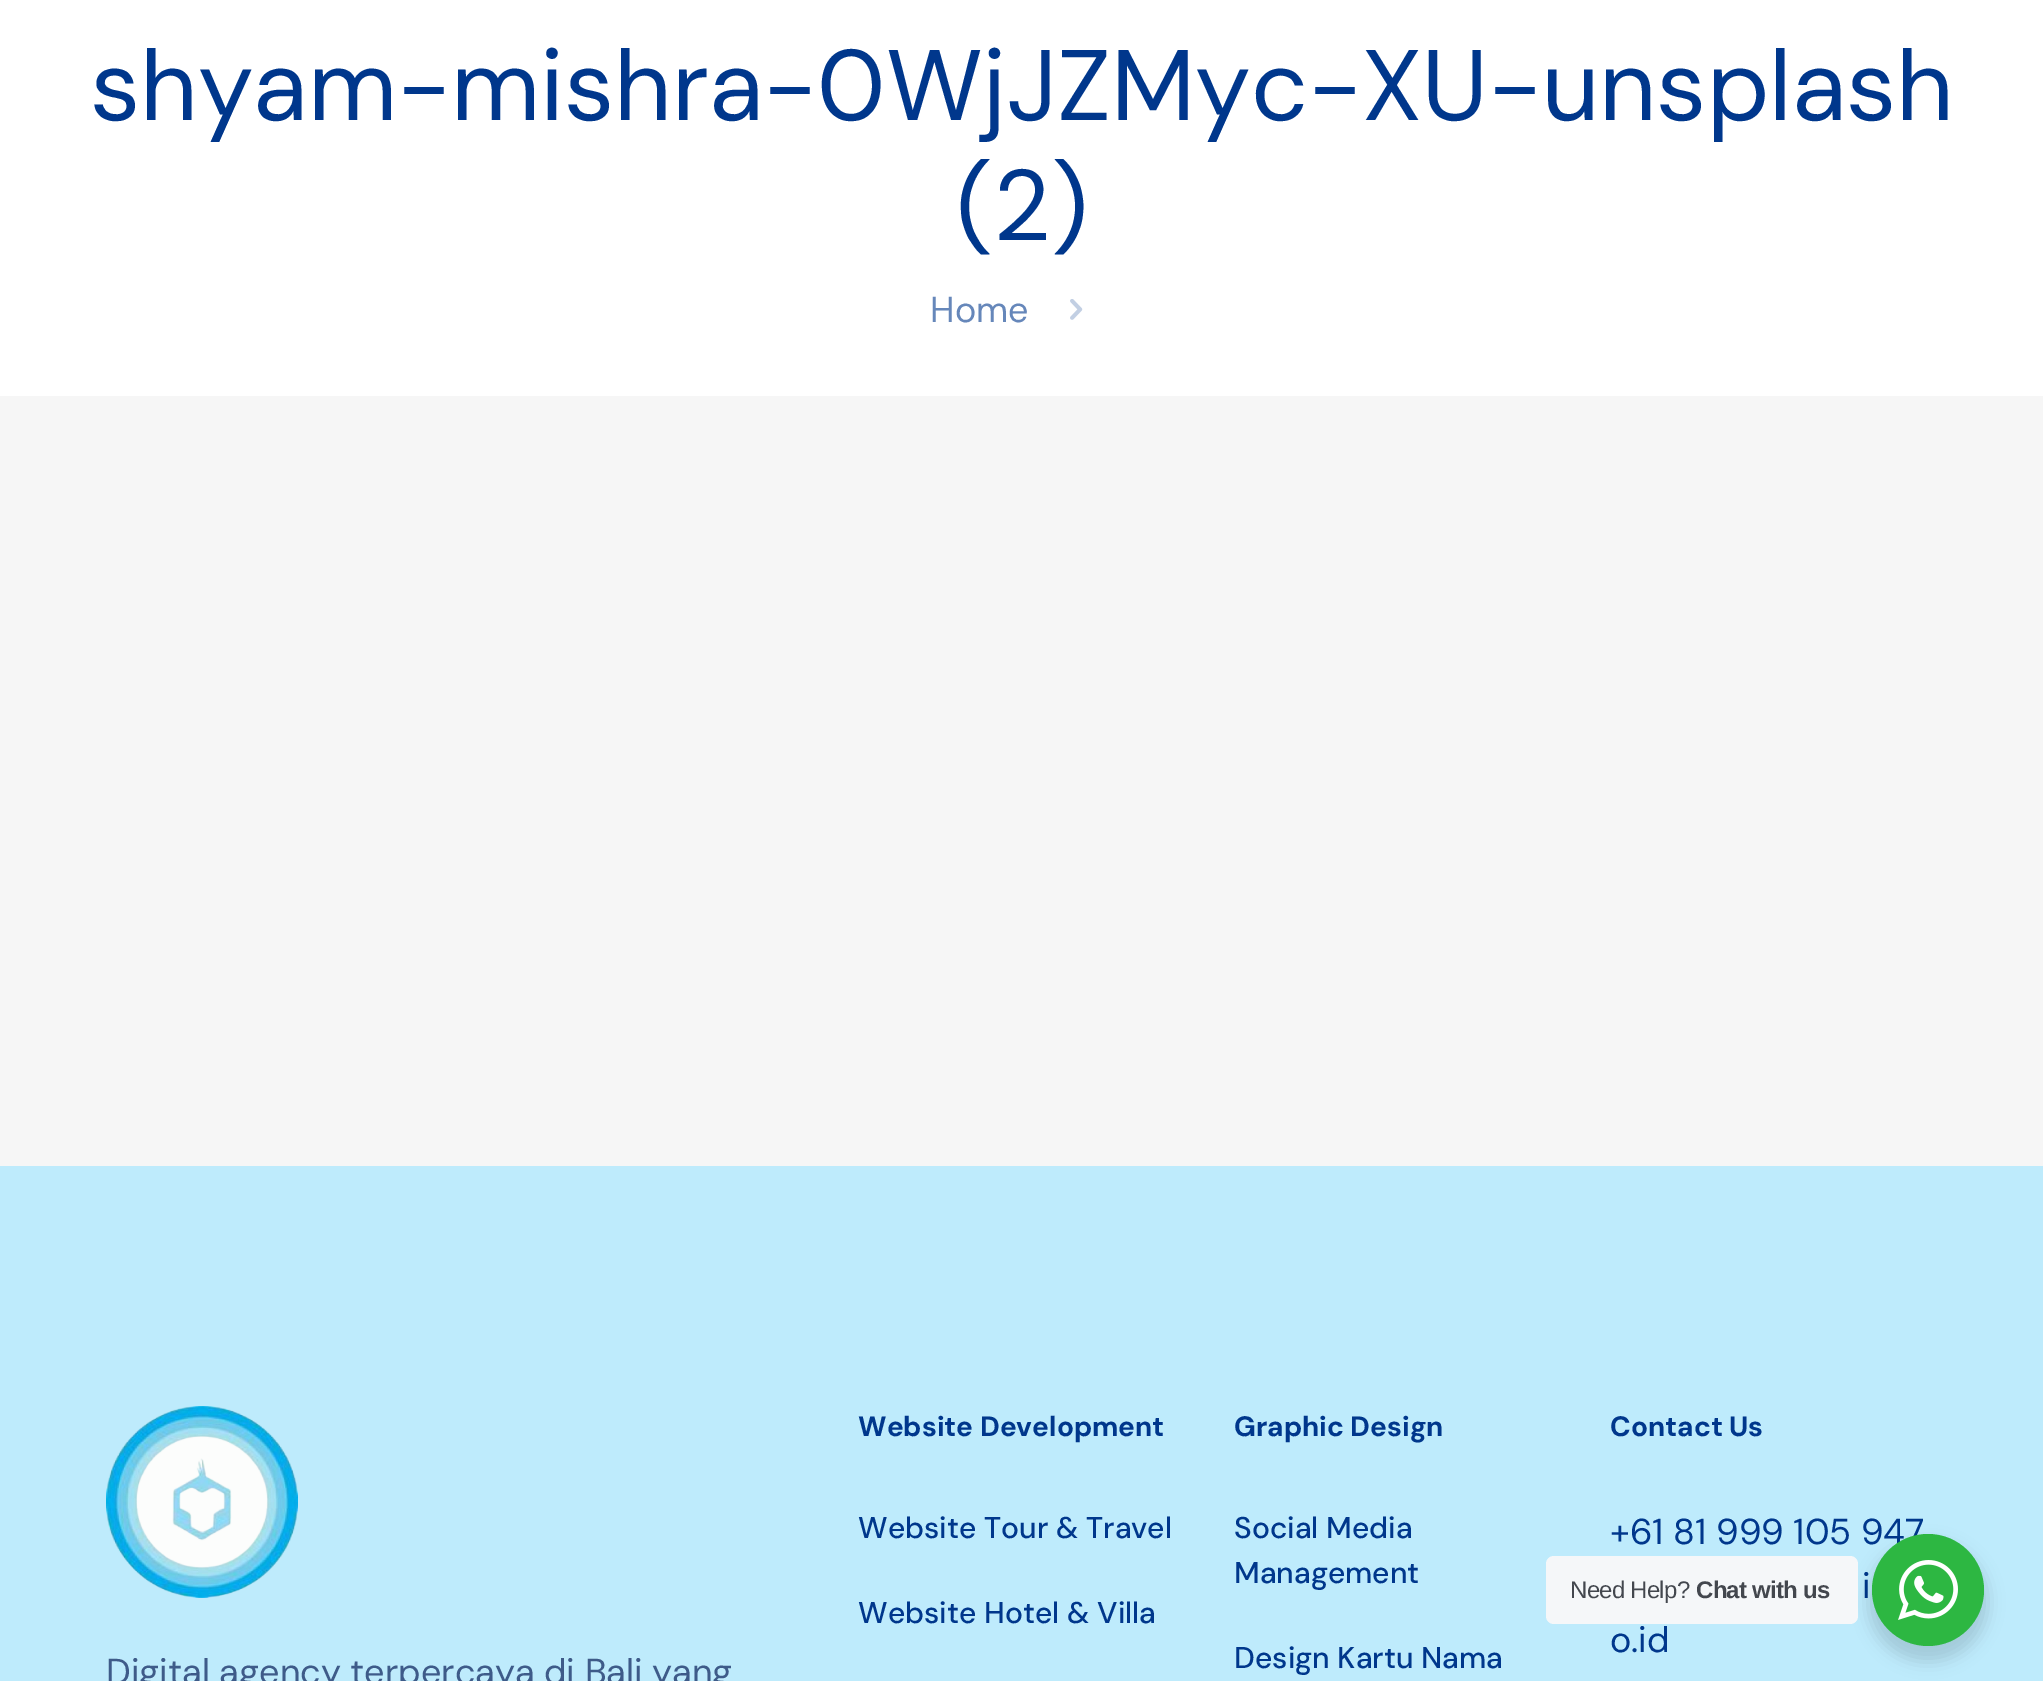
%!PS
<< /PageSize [2043 1681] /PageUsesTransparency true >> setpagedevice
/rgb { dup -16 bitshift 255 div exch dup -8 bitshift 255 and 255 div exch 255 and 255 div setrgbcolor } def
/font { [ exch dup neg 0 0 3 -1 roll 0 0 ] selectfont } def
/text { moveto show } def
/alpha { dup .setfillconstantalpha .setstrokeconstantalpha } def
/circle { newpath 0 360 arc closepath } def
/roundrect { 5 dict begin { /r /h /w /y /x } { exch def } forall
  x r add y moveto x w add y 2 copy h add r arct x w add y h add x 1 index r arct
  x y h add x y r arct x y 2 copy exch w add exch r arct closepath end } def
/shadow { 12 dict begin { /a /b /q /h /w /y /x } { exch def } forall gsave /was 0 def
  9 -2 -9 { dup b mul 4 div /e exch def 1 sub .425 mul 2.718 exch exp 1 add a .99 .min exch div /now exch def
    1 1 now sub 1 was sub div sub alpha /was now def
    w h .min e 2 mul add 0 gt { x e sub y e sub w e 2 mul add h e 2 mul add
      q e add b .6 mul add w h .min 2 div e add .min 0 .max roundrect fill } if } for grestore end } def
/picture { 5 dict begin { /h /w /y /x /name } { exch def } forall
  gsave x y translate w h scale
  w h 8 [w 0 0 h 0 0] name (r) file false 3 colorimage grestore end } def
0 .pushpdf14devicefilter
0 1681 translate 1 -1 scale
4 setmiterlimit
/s1 { /DMSans-Regular 100 font 16#00378C rgb } def
/s2 { /DMSans-Regular 36 font 16#6687BA rgb } def
/s3 { /DMSans-Bold 28 font 16#00378C rgb } def
/s4 { /DMSans-Medium 30 font 16#00378C rgb } def
/s5 { /DMSans-Regular 36 font 16#00378C rgb } def
/s6 { /DMSans-Regular 36 font 16#3E5B89 rgb } def
16#F6F6F6 rgb
0 0 2043 1681 rectfill
16#FFFFFF rgb
0 0 2043 396 rectfill
s1
(shyam-mishra-0WjJZMyc-XU-unsplash) 90 120 text
(\(2\)) 956 240 text
s2
(Home) 930 322 text
(pic1.raw) 1070 299 13 21 picture
16#BEEBFC rgb
0 1166 2043 515 rectfill
s3
(Website Development) 858 1436 text
s4
(Website Tour & Travel) 858 1538 text
(Website Hotel & Villa) 858 1623 text
s3
(Graphic Design) 1234 1436 text
s4
(Social Media) 1234 1538 text
(Management) 1234 1583 text
(Design Kartu Nama) 1234 1668 text
s3
(Contact Us) 1610 1436 text
s5
(+61 81 999 105 947) 1610 1544 text
(i) 1862 1598 text
(o.id) 1610 1652 text
(pic2.raw) 106 1406 192 192 picture
s6
(Digital agency terpercaya di Bali yang) 106 1684 text
16#000000 rgb
1868 1542 120 120 60 8 0.14 shadow
16#F5F7F9 rgb
1546 1556 312 68 8 roundrect fill
/LiberationSans-Regular 24 font
16#43474E rgb
1570 1598 moveto -0.75 0 (Need Help?) ashow
/LiberationSans-Bold 24 font
1696 1598 moveto -0.75 0 (Chat with us) ashow
16#2DB742 rgb
1928 1590 56 circle fill
(pic3.raw) 1898 1560 60 60 picture
.poppdf14devicefilter showpage
